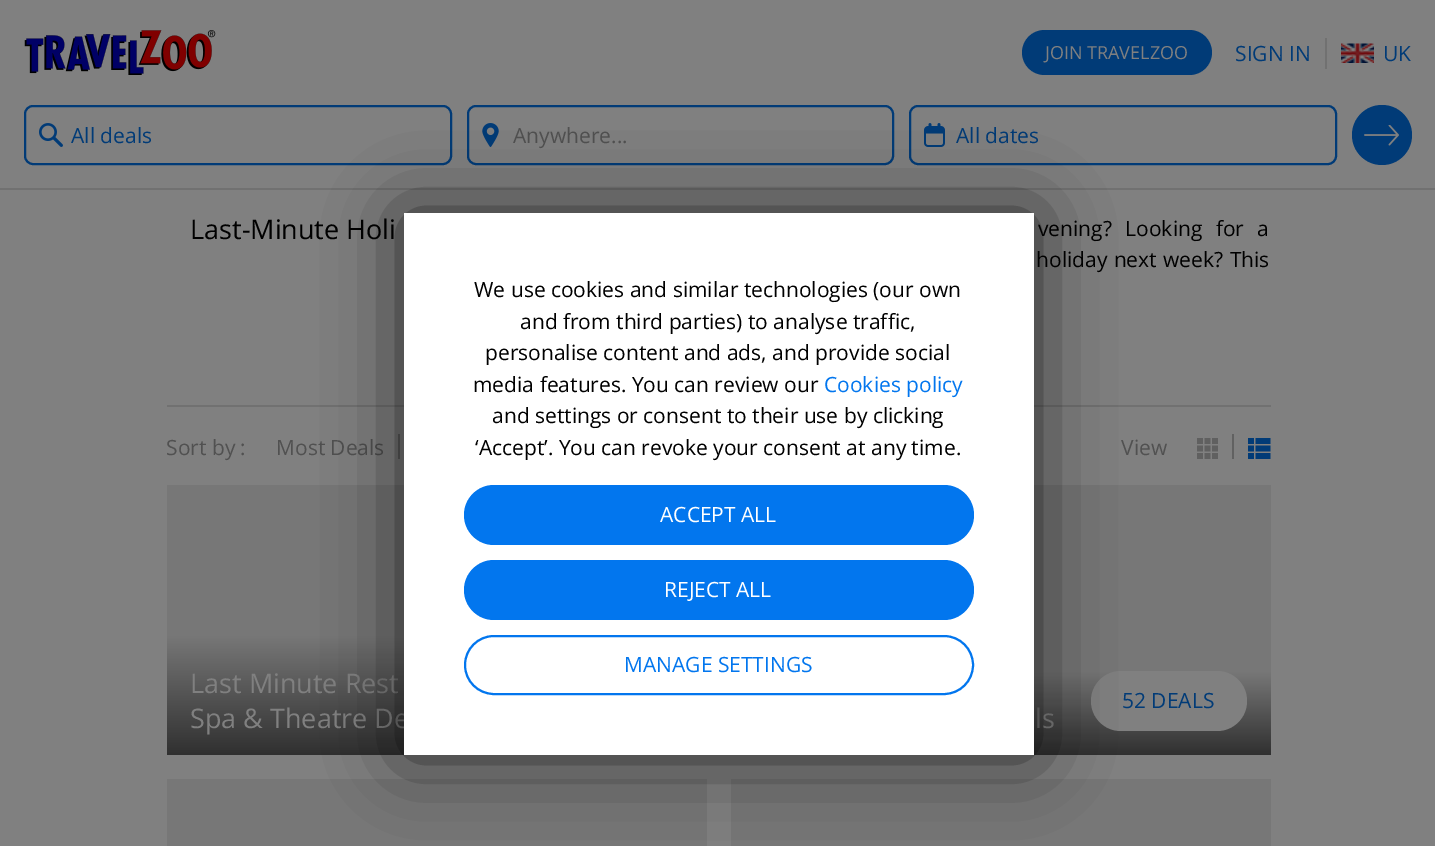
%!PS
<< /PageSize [1435 846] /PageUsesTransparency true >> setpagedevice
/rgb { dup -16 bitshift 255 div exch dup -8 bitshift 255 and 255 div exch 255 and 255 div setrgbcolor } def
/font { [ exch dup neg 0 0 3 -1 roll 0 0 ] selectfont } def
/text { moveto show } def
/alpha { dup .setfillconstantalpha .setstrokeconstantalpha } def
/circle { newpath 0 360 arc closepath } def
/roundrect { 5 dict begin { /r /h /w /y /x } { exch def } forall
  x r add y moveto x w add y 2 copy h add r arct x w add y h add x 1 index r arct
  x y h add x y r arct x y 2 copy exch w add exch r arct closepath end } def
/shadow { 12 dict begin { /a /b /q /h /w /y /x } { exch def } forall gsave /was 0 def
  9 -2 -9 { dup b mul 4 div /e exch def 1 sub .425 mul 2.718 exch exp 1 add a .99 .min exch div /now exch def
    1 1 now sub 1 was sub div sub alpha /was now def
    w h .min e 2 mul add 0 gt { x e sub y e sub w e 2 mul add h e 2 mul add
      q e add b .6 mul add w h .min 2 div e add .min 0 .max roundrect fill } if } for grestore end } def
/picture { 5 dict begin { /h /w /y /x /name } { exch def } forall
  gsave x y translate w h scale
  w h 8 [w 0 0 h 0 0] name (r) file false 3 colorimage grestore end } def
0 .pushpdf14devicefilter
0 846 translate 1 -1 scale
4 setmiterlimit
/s1 { /OpenSans-Regular 18 font 16#808080 rgb } def
/s2 { /OpenSans-Regular 21 font 16#013B77 rgb } def
/s3 { /OpenSans-Regular 21 font 16#515151 rgb } def
/s4 { /OpenSans-Regular 27 font 16#000000 rgb } def
/s5 { /OpenSans-Regular 27 font 16#808080 rgb } def
/s6 { /OpenSans-Regular 21 font 16#000000 rgb } def
/s7 { /OpenSans-Regular 21 font 16#0276EE rgb } def
/s8 { /OpenSans-Regular 21 font 16#FFFFFF rgb } def
16#808080 rgb
0 0 1435 846 rectfill
(pic1.raw) 24 30 192 45 picture
16#013B77 rgb
1022 30 190 45 22.5 roundrect fill
s1
(JOIN TRAVELZOO) 1045 59 text
s2
(SIGN IN) 1235 61 text
16#717171 rgb
1325 38 2 31 rectfill
(pic2.raw) 1341 43 33 20 picture
s2
(UK) 1383 61 text
16#717171 rgb
0 188 1435 2 rectfill
16#013B77 rgb
2 setlinewidth
25 106 426 58 8 roundrect stroke
(pic3.raw) 39 123 24 24 picture
(All deals) 71 143 text
468 106 425 58 8 roundrect stroke
(pic4.raw) 482 123 17 24 picture
s3
(Anywhere...) 513 143 text
16#013B77 rgb
910 106 426 58 8 roundrect stroke
(pic5.raw) 924 123 21 24 picture
(All dates) 956 143 text
1382 135 30 circle fill
(pic6.raw) 1364 125 35 21 picture
s4
(Last-Minute Holi) 190 239 text
/OpenSans-Regular 21 font
1038 236 moveto 8 0 32 (vening? Looking for a) widthshow
1036 267 moveto 1 0 32 (holiday next week? This) widthshow
16#717171 rgb
167 405 1104 2 rectfill
s3
(Sort by :) 166 455 text
(Most Deals) 276 455 text
16#616161 rgb
398 434 2 25 rectfill
s3
(View) 1121 455 text
(pic7.raw) 1197 438 21 21 picture
16#616161 rgb
1232 434 2 25 rectfill
(pic8.raw) 1248 438 23 21 picture
16#777777 rgb
167 485 237 151 rectfill
gsave 167 636 moveto 404 636 lineto 404 755 lineto 167 755 lineto closepath clip newpath
<< /ShadingType 2 /ColorSpace /DeviceRGB /Coords [437 636 437 755] /Extend [true true] /Function << /FunctionType 2 /Domain [0 1] /C0 [0.467 0.467 0.467] /C1 [0.188 0.188 0.188] /N 1 >> >> shfill grestore
s5
(Last Minute Rest) 190 693 text
(Spa & Theatre De) 190 728 text
16#777777 rgb
1034 485 237 187 rectfill
gsave 1034 672 moveto 1271 672 lineto 1271 755 lineto 1034 755 lineto closepath clip newpath
<< /ShadingType 2 /ColorSpace /DeviceRGB /Coords [1001 672 1001 755] /Extend [true true] /Function << /FunctionType 2 /Domain [0 1] /C0 [0.467 0.467 0.467] /C1 [0.188 0.188 0.188] /N 1 >> >> shfill grestore
16#808080 rgb
1091 671 156 60 30 roundrect fill
s2
(52 DEALS) 1122 708 text
s5
(ls) 1035 728 text
16#777777 rgb
167 779 540 67 rectfill
731 779 540 67 rectfill
16#000000 rgb
404 215 630 541 0 37.5 0.7 shadow
16#FFFFFF rgb
404 213 630 542 rectfill
s6
(We use cookies and similar technologies \(our own) 474 297 text
(and from third parties\) to analyse traffic,) 520 329 text
(personalise content and ads, and provide social) 485 360 text
(media features. You can review our) 473 392 text
s7
(Cookies policy) 824 392 text
s6
(and settings or consent to their use by clicking) 492 423 text
(‘Accept’. You can revoke your consent at any time.) 475 455 text
16#0276EE rgb
464 485 510 60 30 roundrect fill
s8
(ACCEPT ALL) 660 522 text
16#0276EE rgb
464 560 510 60 30 roundrect fill
s8
(REJECT ALL) 664 597 text
16#0276EE rgb
465 636 508 58 29 roundrect stroke
(MANAGE SETTINGS) 624 672 text
.poppdf14devicefilter showpage
